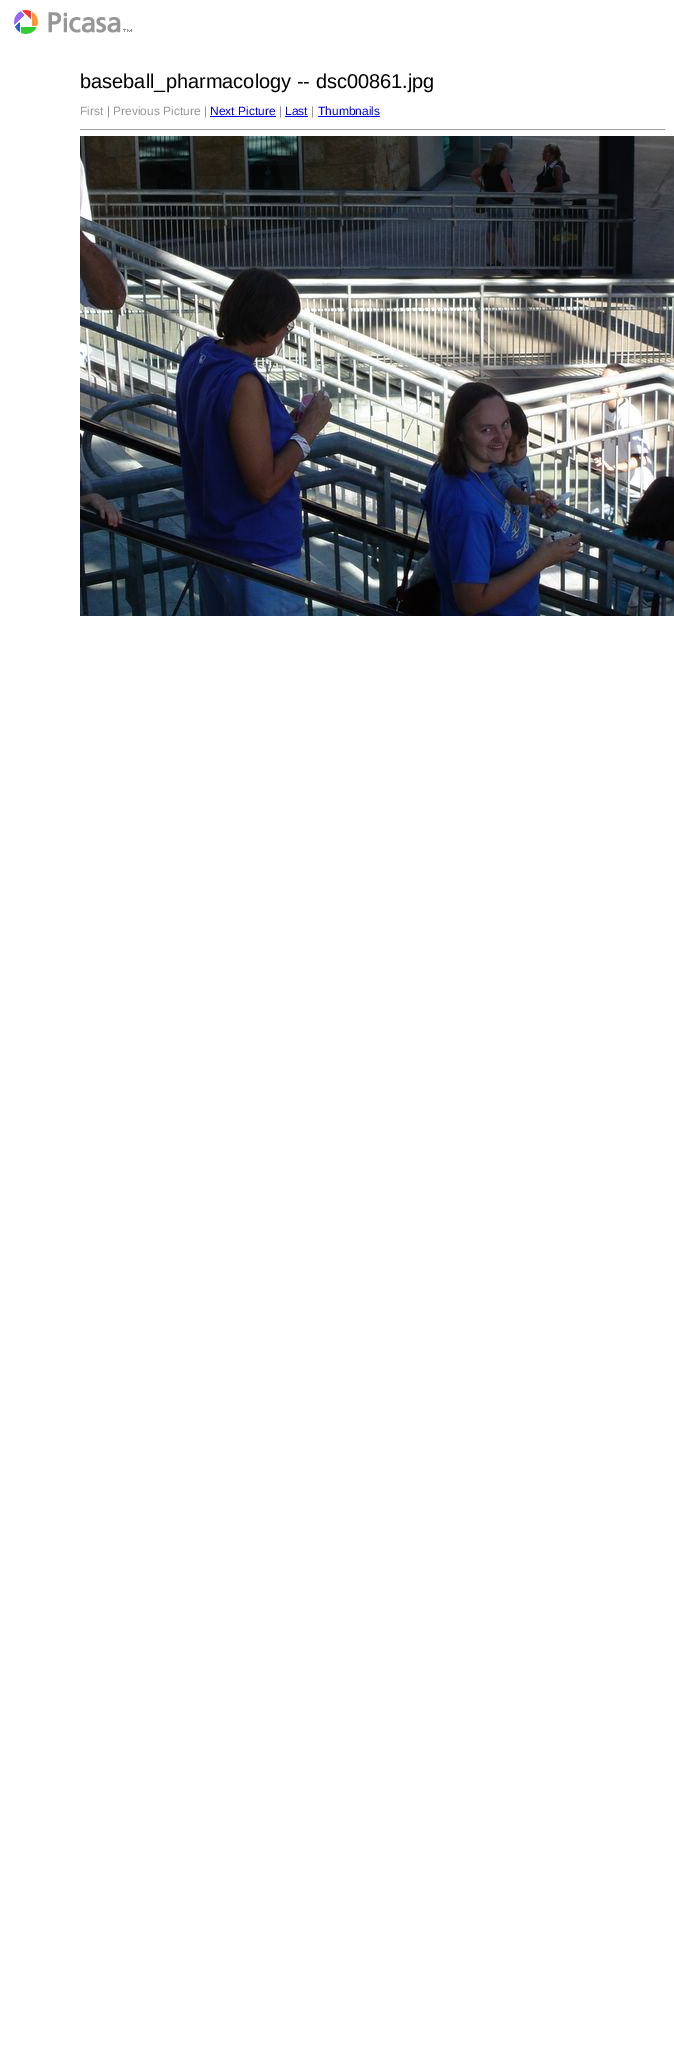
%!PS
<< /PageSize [674 2056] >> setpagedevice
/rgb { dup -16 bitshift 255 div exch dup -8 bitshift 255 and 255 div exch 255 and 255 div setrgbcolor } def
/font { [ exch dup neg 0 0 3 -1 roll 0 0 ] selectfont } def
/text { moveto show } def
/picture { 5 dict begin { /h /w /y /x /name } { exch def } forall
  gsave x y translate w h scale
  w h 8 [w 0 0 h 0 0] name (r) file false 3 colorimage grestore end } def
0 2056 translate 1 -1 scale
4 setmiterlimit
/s1 { /LiberationSans-Regular 20 font 16#000000 rgb } def
/s2 { /LiberationSans-Regular 12 font 16#979797 rgb } def
/s3 { /LiberationSans-Regular 12 font 16#0000EE rgb } def
16#FFFFFF rgb
0 0 674 2056 rectfill
(pic1.raw) 14 10 118 24 picture
s1
(baseball_pharmacology -- dsc00861.jpg) 80 88 text
s2
(First | Previous Picture |) 80 115 text
s3
(Next Picture) 210 115 text
210 116 66 1 rectfill
s2
(|) 279 115 text
s3
(Last) 285 115 text
285 116 23 1 rectfill
s2
(|) 311 115 text
s3
(Thumbnails) 318 115 text
318 116 62 1 rectfill
16#9F9F9F rgb
80 129 586 1 rectfill
16#EEEEEE rgb
665 129 1 1 rectfill
(pic2.raw) 80 136 594 480 picture
showpage
